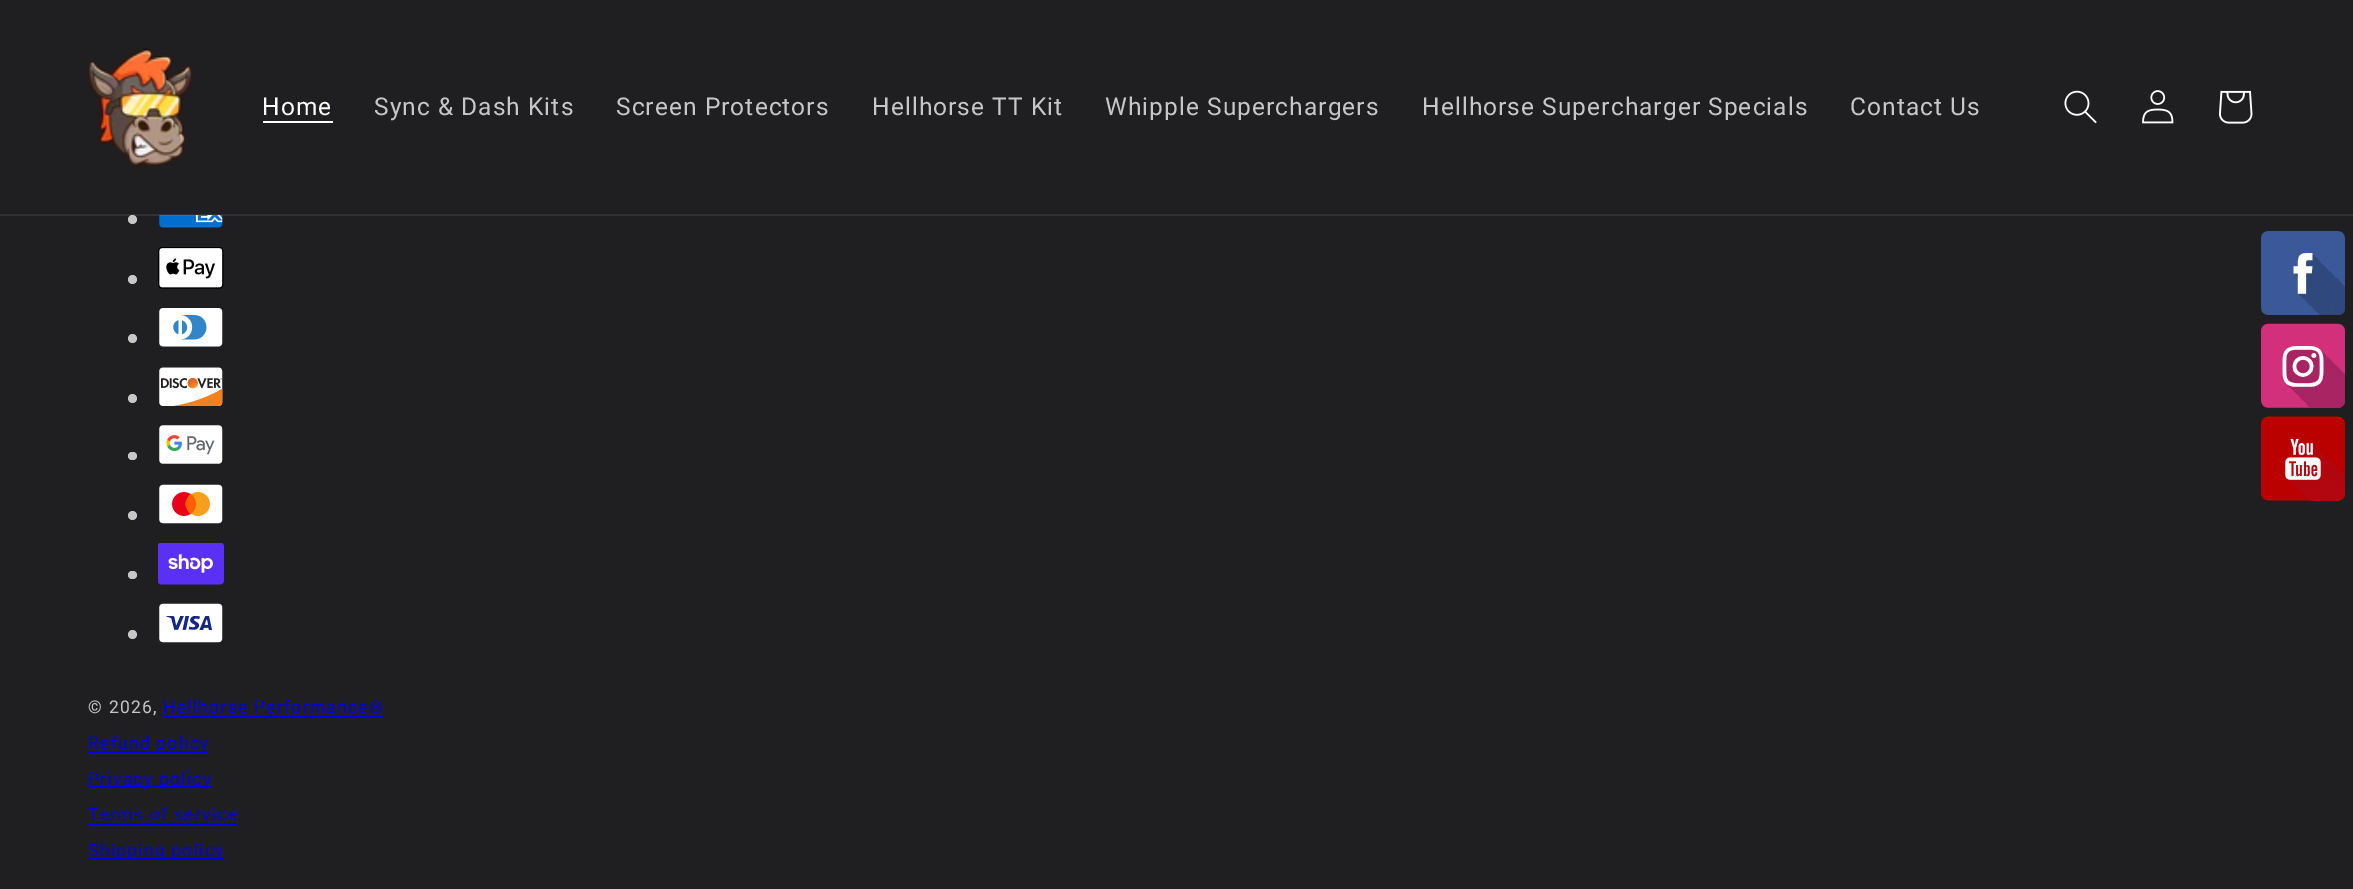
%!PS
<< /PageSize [2353 889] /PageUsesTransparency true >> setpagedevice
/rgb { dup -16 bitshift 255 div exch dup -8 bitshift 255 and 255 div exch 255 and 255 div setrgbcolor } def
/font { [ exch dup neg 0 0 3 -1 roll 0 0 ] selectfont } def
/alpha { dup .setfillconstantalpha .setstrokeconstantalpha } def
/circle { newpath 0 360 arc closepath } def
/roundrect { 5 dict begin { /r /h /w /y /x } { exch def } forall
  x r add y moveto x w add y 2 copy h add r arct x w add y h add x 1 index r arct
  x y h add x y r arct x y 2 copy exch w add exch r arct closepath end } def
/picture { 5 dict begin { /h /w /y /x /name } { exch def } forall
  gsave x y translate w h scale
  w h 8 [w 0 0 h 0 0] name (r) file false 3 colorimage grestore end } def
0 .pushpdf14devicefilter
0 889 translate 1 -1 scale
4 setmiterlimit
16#1F1F21 rgb
0 0 2353 889 rectfill
16#C7C7C8 rgb
132.5 219.5 4.5 circle fill
(pic6.raw) 159 215 64 13 picture
0.08 alpha
16#FFFFFF rgb
0 214 2353 2 rectfill
1 alpha
(pic1.raw) 87 48 106 118 picture
/Roboto-Regular 24.5 font
262 115 moveto 1.05 0 (Home) ashow
263 121 70 2 rectfill
16#C7C7C8 rgb
374 115 moveto 1.05 0 (Sync & Dash Kits) ashow
616 115 moveto 1.05 0 (Screen Protectors) ashow
872 115 moveto 1.05 0 (Hellhorse TT Kit) ashow
1105 115 moveto 1.05 0 (Whipple Superchargers) ashow
1422 115 moveto 1.05 0 (Hellhorse Supercharger Specials) ashow
1850 115 moveto 1.05 0 (Contact Us) ashow
(pic2.raw) 2064 90 33 34 picture
(pic3.raw) 2142 90 32 34 picture
(pic4.raw) 2219 90 34 34 picture
(pic5.raw) 2261 231 84 270 picture
132.5 279.5 4.5 circle fill
(pic7.raw) 158 247 66 42 picture
132.5 338.5 4.5 circle fill
(pic8.raw) 159 308 64 39 picture
132.5 398.5 4.5 circle fill
(pic9.raw) 159 367 64 39 picture
128 452 9 8 4 roundrect fill
(pic10.raw) 159 425 64 39 picture
132.5 515.5 4.5 circle fill
(pic11.raw) 159 484 64 40 picture
128 571 9 8 4 roundrect fill
(pic12.raw) 158 543 66 42 picture
132.5 634.5 4.5 circle fill
(pic13.raw) 159 603 64 40 picture
/Roboto-Regular 17.5 font
88 713 moveto 1.25 0 (© 2026,) ashow
16#0000EE rgb
163 713 moveto 1.25 0 (Hellhorse Performance®) ashow
163 716 220 2 rectfill
88 751 120 2 rectfill
88 749 moveto 1.25 0 (Refund policy) ashow
88 786 124 2 rectfill
88 785 moveto 1.25 0 (Privacy policy) ashow
88 820 moveto 1.25 0 (Terms of service) ashow
88 823 150 2 rectfill
88 858 136 2 rectfill
88 856 moveto 1.25 0 (Shipping policy) ashow
.poppdf14devicefilter showpage
